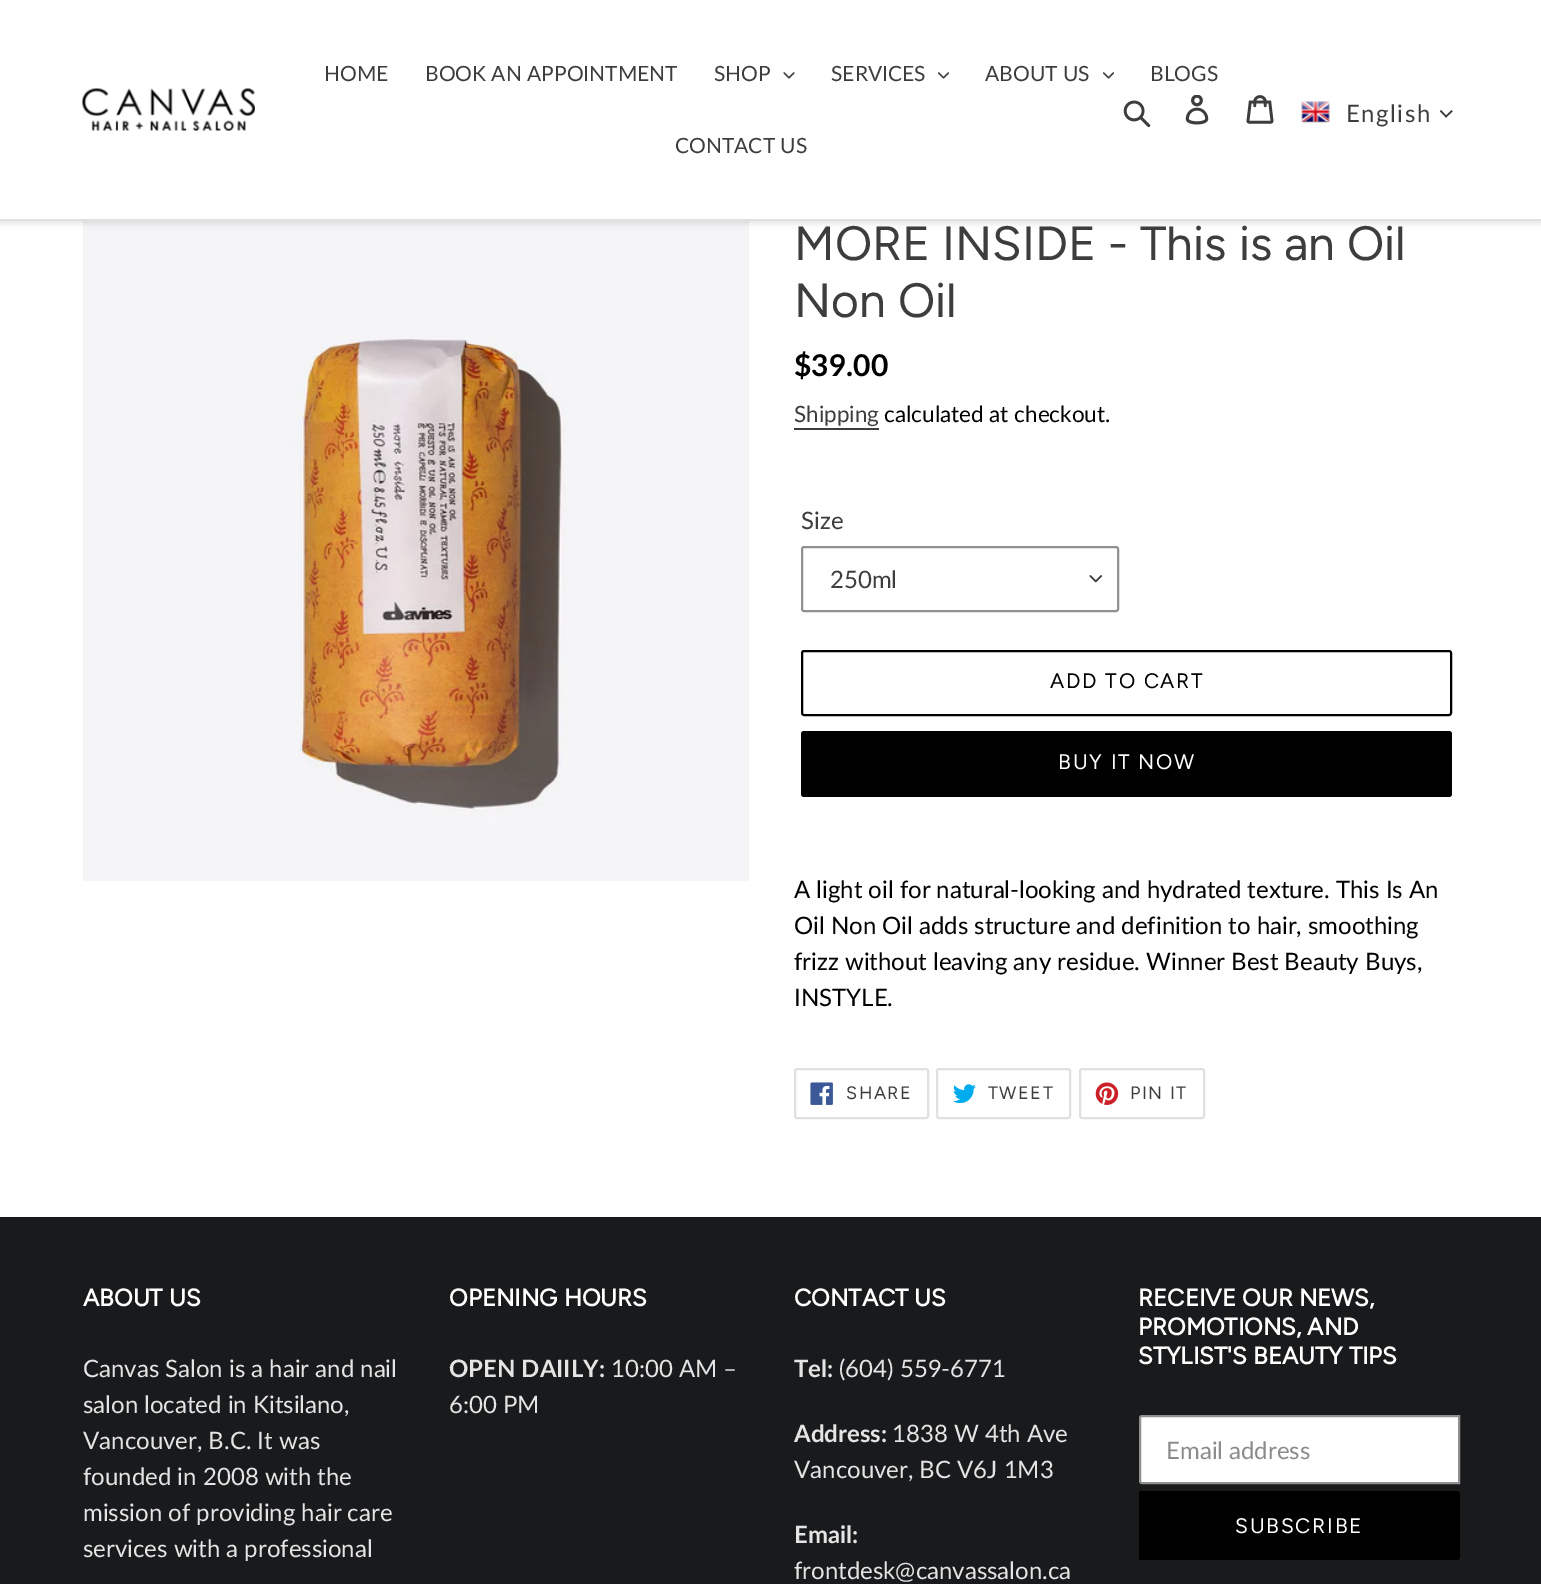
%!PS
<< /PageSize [1541 1584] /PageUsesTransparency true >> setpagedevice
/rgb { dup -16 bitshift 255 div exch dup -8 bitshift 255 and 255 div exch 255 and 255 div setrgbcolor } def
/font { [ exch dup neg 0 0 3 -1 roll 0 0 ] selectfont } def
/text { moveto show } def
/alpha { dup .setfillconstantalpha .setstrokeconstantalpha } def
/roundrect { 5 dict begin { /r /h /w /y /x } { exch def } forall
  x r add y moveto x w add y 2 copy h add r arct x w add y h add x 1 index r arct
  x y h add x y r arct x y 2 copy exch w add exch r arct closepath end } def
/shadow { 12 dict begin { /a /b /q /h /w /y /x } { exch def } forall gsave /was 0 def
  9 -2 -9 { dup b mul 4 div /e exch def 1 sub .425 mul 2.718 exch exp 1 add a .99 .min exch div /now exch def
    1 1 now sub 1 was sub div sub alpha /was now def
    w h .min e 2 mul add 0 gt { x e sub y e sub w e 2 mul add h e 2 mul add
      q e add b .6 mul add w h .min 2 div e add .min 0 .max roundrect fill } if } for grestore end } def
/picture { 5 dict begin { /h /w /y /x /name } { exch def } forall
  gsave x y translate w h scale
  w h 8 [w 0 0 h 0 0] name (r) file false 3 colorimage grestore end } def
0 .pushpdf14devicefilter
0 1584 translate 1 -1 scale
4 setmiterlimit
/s1 { /Lato-Regular 21 font 16#3D3D3D rgb } def
/s2 { /Figtree-Regular 48 font 16#3D3D3D rgb } def
/s3 { /Lato-Bold 30 font 16#000000 rgb } def
/s4 { /Lato-Regular 22.5 font 16#3D3D3D rgb } def
/s5 { /Lato-Regular 22.5 font 16#000000 rgb } def
/s6 { /Lato-Regular 24 font 16#3D3D3D rgb } def
/s7 { /Lato-Regular 24 font 16#000000 rgb } def
/s8 { /Figtree-Bold 24 font 16#FFFFFF rgb } def
/s9 { /Lato-Regular 24 font 16#E4E4E4 rgb } def
/s10 { /Lato-Bold 24 font 16#E4E4E4 rgb } def
/s11 { /Lato-Regular 24 font 16#8B8B8B rgb } def
16#FFFFFF rgb
0 0 1541 1584 rectfill
(pic8.raw) 83 221 666 660 picture
16#000000 rgb
0 3 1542 221 0 3 0.1 shadow
16#FFFFFF rgb
0 0 1541 219 rectfill
16#E0E0E0 rgb
0 219 1541 2 rectfill
(pic1.raw) 82 88 173 43 picture
s1
(HOME) 324 81 text
(BOOK AN APPOINTMENT) 425 81 text
(SHOP) 714 81 text
(pic2.raw) 783 72 12 7 picture
(SERVICES) 831 81 text
(pic3.raw) 938 72 11 7 picture
(ABOUT US) 985 81 text
(pic3.raw) 1103 72 11 7 picture
(BLOGS) 1150 81 text
(CONTACT US) 675 153 text
(pic4.raw) 1123 100 28 28 picture
(pic5.raw) 1185 95 24 30 picture
(pic6.raw) 1246 95 28 29 picture
(pic7.raw) 1301 101 29 22 picture
/Lato-Regular 24 font
1346 122 moveto 1.5 0 (English) ashow
16#3A3A3A rgb
1451.5 110 moveto 1452.5 111.5 lineto 1446 117.5 lineto 1445 116.5 lineto closepath fill
1441 110 moveto 1447 116.5 lineto 1446 117.5 lineto 1440 111.5 lineto closepath fill
s2
(MORE INSIDE - This is an Oil) 794 260 text
(Non Oil) 794 317 text
s3
($39.00) 794 376 text
s4
(Shipping) 794 422 text
794 428 85 2 rectfill
s5
(calculated at checkout.) 884 422 text
s6
(Size) 801 529 text
(pic9.raw) 1089 575 13 8 picture
16#909090 rgb
2 setlinewidth
802 547 316 64 2 roundrect stroke
s6
(250ml) 830 588 text
16#000000 rgb
802 651 649 64 2 roundrect stroke
/Figtree-Regular 21 font
1050 688 moveto 1.75 0 (ADD TO CART) ashow
801 731 651 66 3 roundrect fill
16#FFFFFF rgb
1058 769 moveto 1.75 0 (BUY IT NOW) ashow
s7
(A light oil for natural-looking and hydrated texture. This Is An) 794 898 text
(Oil Non Oil adds structure and definition to hair, smoothing) 794 934 text
(frizz without leaving any residue. Winner Best Beauty Buys,) 794 970 text
(INSTYLE.) 794 1006 text
16#E0E0E0 rgb
795 1069 133 49 2 roundrect stroke
(pic10.raw) 810 1082 23 23 picture
/Figtree-Regular 18 font
16#3D3D3D rgb
846 1099 moveto 1.5 0 (SHARE) ashow
16#E0E0E0 rgb
937 1069 133 49 2 roundrect stroke
(pic11.raw) 953 1084 23 20 picture
16#3D3D3D rgb
988 1099 moveto 1.5 0 (TWEET) ashow
16#E0E0E0 rgb
1080 1069 124 49 2 roundrect stroke
(pic12.raw) 1095 1082 24 23 picture
16#3D3D3D rgb
1130 1099 moveto 1.5 0 (PIN IT) ashow
16#191A1C rgb
0 1217 1541 367 rectfill
s8
(ABOUT US) 83 1306 text
s9
(Canvas Salon is a hair and nail) 83 1377 text
(salon located in Kitsilano,) 83 1413 text
(Vancouver, B.C. It was) 83 1449 text
(founded in 2008 with the) 83 1485 text
(mission of providing hair care) 83 1521 text
(services with a professional) 83 1557 text
s8
(OPENING HOURS) 449 1306 text
s10
(OPEN DAIILY:) 449 1377 text
s9
(10:00 AM –) 611 1377 text
(6:00 PM) 449 1413 text
s8
(CONTACT US) 794 1306 text
s10
(Tel:) 794 1377 text
s9
(\(604\) 559-6771) 839 1377 text
s10
(Address:) 794 1442 text
s9
(1838 W 4th Ave) 892 1442 text
(Vancouver, BC V6J 1M3) 794 1478 text
s10
(Email:) 794 1543 text
s9
(frontdesk@canvassalon.ca) 794 1579 text
s8
(RECEIVE OUR NEWS,) 1138 1306 text
(PROMOTIONS, AND) 1138 1335 text
(STYLIST'S BEAUTY TIPS) 1138 1364 text
1142 1416 moveto 1459 1416 lineto 1459 1483 lineto 1142 1483 lineto 1141 1483 1140 1482 1140 1481 curveto 1140 1418 lineto 1140 1417 1141 1416 1142 1416 curveto closepath gsave fill grestore
16#909090 rgb
stroke
s11
(Email address) 1166 1459 text
16#000000 rgb
1139 1491 moveto 1457 1491 lineto 1458.5 1491 1460 1492.5 1460 1494 curveto 1460 1557 lineto 1460 1558.5 1458.5 1560 1457 1560 curveto 1139 1560 lineto closepath fill
/Figtree-Regular 21 font
16#FFFFFF rgb
1235 1533 moveto 1.75 0 (SUBSCRIBE) ashow
.poppdf14devicefilter showpage
